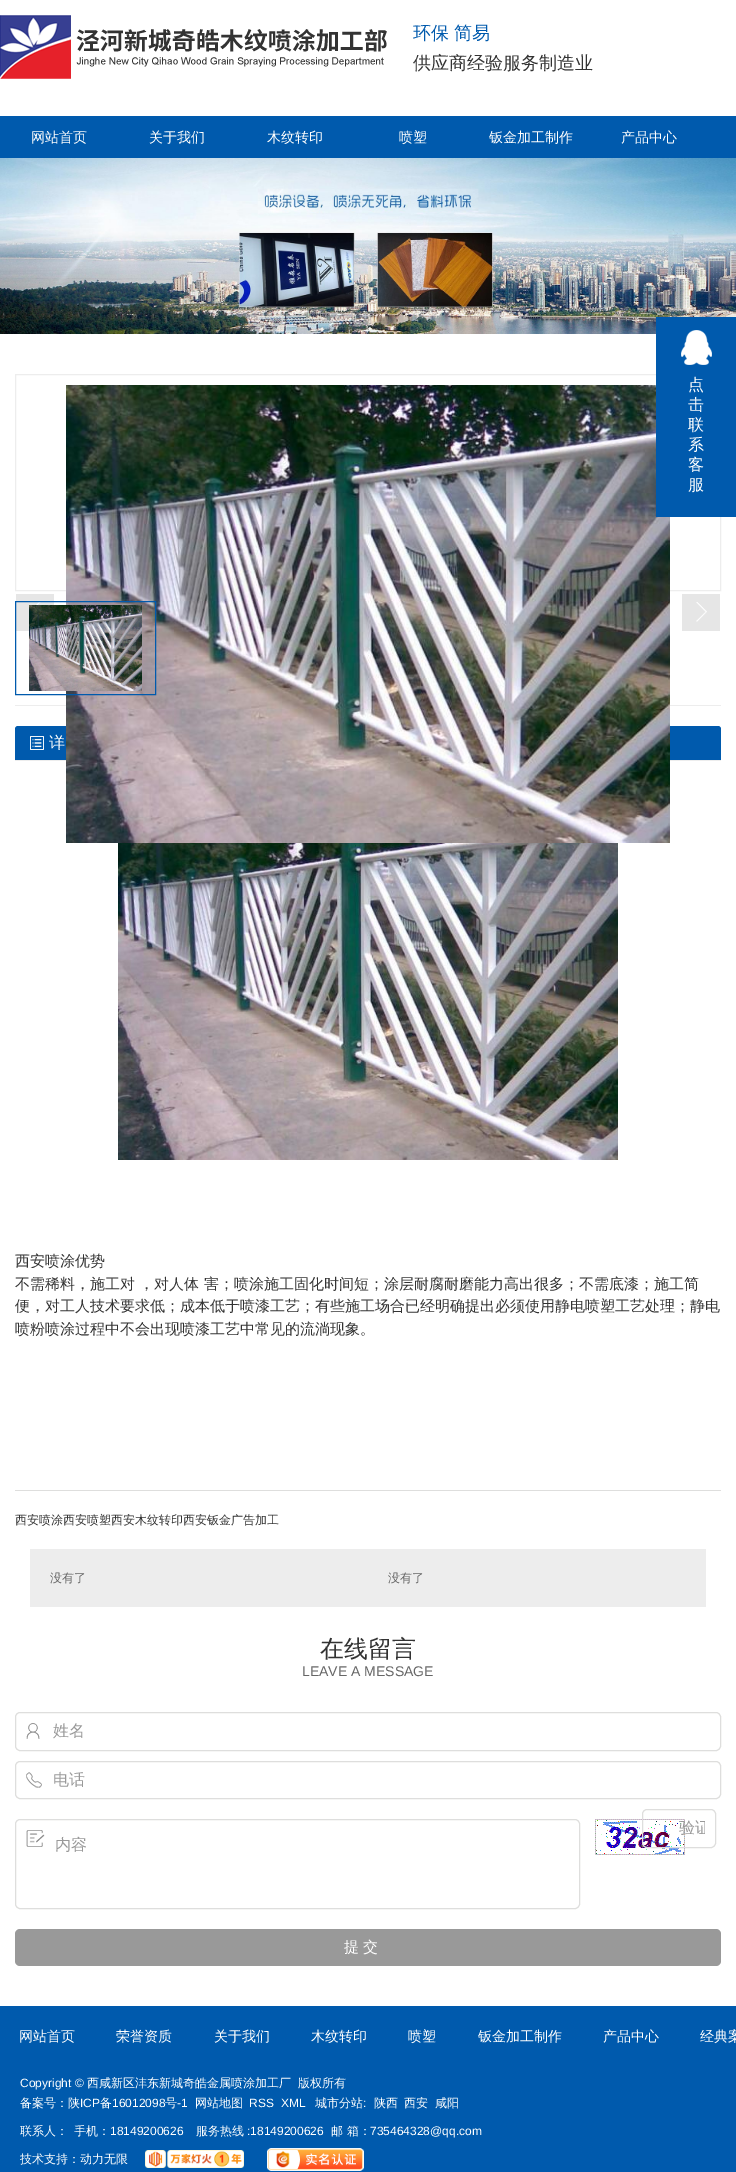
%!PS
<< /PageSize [736 2172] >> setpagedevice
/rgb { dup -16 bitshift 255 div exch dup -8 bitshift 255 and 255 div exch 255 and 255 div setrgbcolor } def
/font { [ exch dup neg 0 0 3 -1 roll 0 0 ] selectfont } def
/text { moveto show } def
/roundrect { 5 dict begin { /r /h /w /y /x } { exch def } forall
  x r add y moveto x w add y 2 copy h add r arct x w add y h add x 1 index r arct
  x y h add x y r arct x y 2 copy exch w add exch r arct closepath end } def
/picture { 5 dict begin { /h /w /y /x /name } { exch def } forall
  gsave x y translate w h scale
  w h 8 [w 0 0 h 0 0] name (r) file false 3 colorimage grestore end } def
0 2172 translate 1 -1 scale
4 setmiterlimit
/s1 { /WenQuanYiZenHei-Medium 18 font 16#005AAD rgb } def
/s2 { /WenQuanYiZenHei-Medium 18 font 16#333333 rgb } def
/s3 { /WenQuanYiZenHei-Medium 14 font 16#FFFFFF rgb } def
/s4 { /WenQuanYiZenHei-Medium 16 font 16#FFFFFF rgb } def
/s5 { /WenQuanYiZenHei-Medium 15 font 16#333333 rgb } def
/s6 { /WenQuanYiZenHei-Medium 12 font 16#333333 rgb } def
/s7 { /WenQuanYiZenHei-Medium 12 font 16#666666 rgb } def
/s8 { /WenQuanYiZenHei-Medium 24 font 16#333333 rgb } def
/s9 { /LiberationSans-Regular 14 font 16#666666 rgb } def
/s10 { /WenQuanYiZenHei-Medium 16 font 16#999999 rgb } def
/s11 { /LiberationSans-Regular 12 font 16#FFFFFF rgb } def
/s12 { /WenQuanYiZenHei-Medium 12 font 16#FFFFFF rgb } def
16#FFFFFF rgb
0 0 736 2172 rectfill
(pic1.raw) 0 15 387 64 picture
s1
(环保 简易) 413 39 text
s2
(供应商经验服务制造业) 413 69 text
16#005AAD rgb
0 116 736 42 rectfill
s3
(网站首页) 31 142 text
(关于我们) 149 142 text
(木纹转印) 267 142 text
(喷塑) 399 142 text
(钣金加工制作) 489 142 text
(产品中心) 621 142 text
(pic2.raw) 0 158 736 176 picture
16#EDEDED rgb
15.5 374.5 705 216 rectstroke
15 705 706 1 rectfill
15 760 706 1 rectfill
16#005AAD rgb
18 726 moveto 718 726 lineto 719.5 726 721 727.5 721 729 curveto 721 760 lineto 15 760 lineto 15 729 lineto 15 727.5 16.5 726 18 726 curveto closepath fill
(pic5.raw) 66 385 604 458 picture
656 317 80 200 rectfill
(pic3.raw) 681 330 31 35 picture
s4
(点) 688 390 text
(击) 688 410 text
(联) 688 430 text
(系) 688 450 text
(客) 688 470 text
(服) 688 490 text
16#E6E6E6 rgb
16 594 38 37 rectfill
(pic4.raw) 36 602 5 3 picture
682 594 38 37 rectfill
(pic6.raw) 696 602 11 20 picture
16#005AAD rgb
15.5 601.5 140 93 rectstroke
(pic7.raw) 29 605 113 86 picture
16#DEDEDD rgb
15 1490 706 1 rectfill
(pic8.raw) 30 736 14 14 picture
s4
(详) 49 748 text
(pic9.raw) 118 843 500 317 picture
s5
(西安喷涂优势) 15 1266 text
(不需稀料，施工对 ，对人体 害；喷涂施工固化时间短；涂层耐腐耐磨能力高出很多；不需底漆；施工简) 15 1289 text
(便，对工人技术要求低；成本低于喷漆工艺；有些施工场合已经明确提出必须使用静电喷塑工艺处理；静电) 15 1311 text
(喷粉喷涂过程中不会出现喷漆工艺中常见的流淌现象。) 15 1334 text
s6
(西安喷涂西安喷塑西安木纹转印西安钣金广告加工) 15 1524 text
16#EDEDED rgb
30 1549 676 58 rectfill
s7
(没有了) 50 1582 text
(没有了) 388 1582 text
s8
(在线留言) 320 1657 text
s9
(LEAVE A MESSAGE) 302 1676 text
(pic10.raw) 26 1723 14 16 picture
16#DEDEDD rgb
15.5 1712.5 705 38 4.5 roundrect stroke
s10
(姓名) 53 1736 text
(pic11.raw) 26 1772 16 16 picture
16#DEDEDD rgb
15.5 1761.5 705 37 4.5 roundrect stroke
s10
(电话) 53 1785 text
(pic12.raw) 595 1819 90 36 picture
16#DEDEDD rgb
642.5 1809.5 73 38 4.5 roundrect stroke
gsave
657 1818 48 21 rectclip
s10
(验证) 679 1833 text
grestore
(pic13.raw) 26 1830 19 17 picture
15.5 1819.5 564 89 4.5 roundrect stroke
s10
(内容) 55 1850 text
15 1929 706 37 5 roundrect fill
/WenQuanYiZenHei-Medium 15 font
16#FFFFFF rgb
344 1952 moveto 4 0 (提交) ashow
16#005AAD rgb
0 2006 736 166 rectfill
s3
(网站首页) 19 2041 text
(荣誉资质) 116 2041 text
(关于我们) 214 2041 text
(木纹转印) 311 2041 text
(喷塑) 408 2041 text
(钣金加工制作) 478 2041 text
(产品中心) 603 2041 text
(经典案) 700 2041 text
s11
(Copyright ©) 20 2087 text
s12
(西咸新区沣东新城奇皓金属喷涂加工厂) 87 2087 text
(版权所有) 298 2087 text
(备案号：陕) 20 2107 text
s11
(ICP) 80 2107 text
s12
(备) 100 2107 text
s11
(16012098) 112 2107 text
s12
(号) 165 2107 text
s11
(-1) 177 2107 text
s12
(网站地图) 195 2107 text
s11
(RSS) 249 2107 text
(XML) 281 2107 text
s12
(城市分站) 315 2107 text
s11
(:) 363 2107 text
s12
(陕西) 374 2107 text
(西安) 404 2107 text
(咸阳) 435 2107 text
(联系人：) 20 2135 text
(手机：) 74 2135 text
s11
(18149200626) 110 2135 text
s12
(服务热线) 196 2135 text
s11
(:18149200626) 247 2135 text
s12
(邮 箱：) 331 2135 text
s11
(735464328@qq.com) 370 2135 text
s12
(技术支持：动力无限) 20 2163 text
(pic14.raw) 145 2150 99 18 picture
(pic15.raw) 267 2148 97 23 picture
showpage
